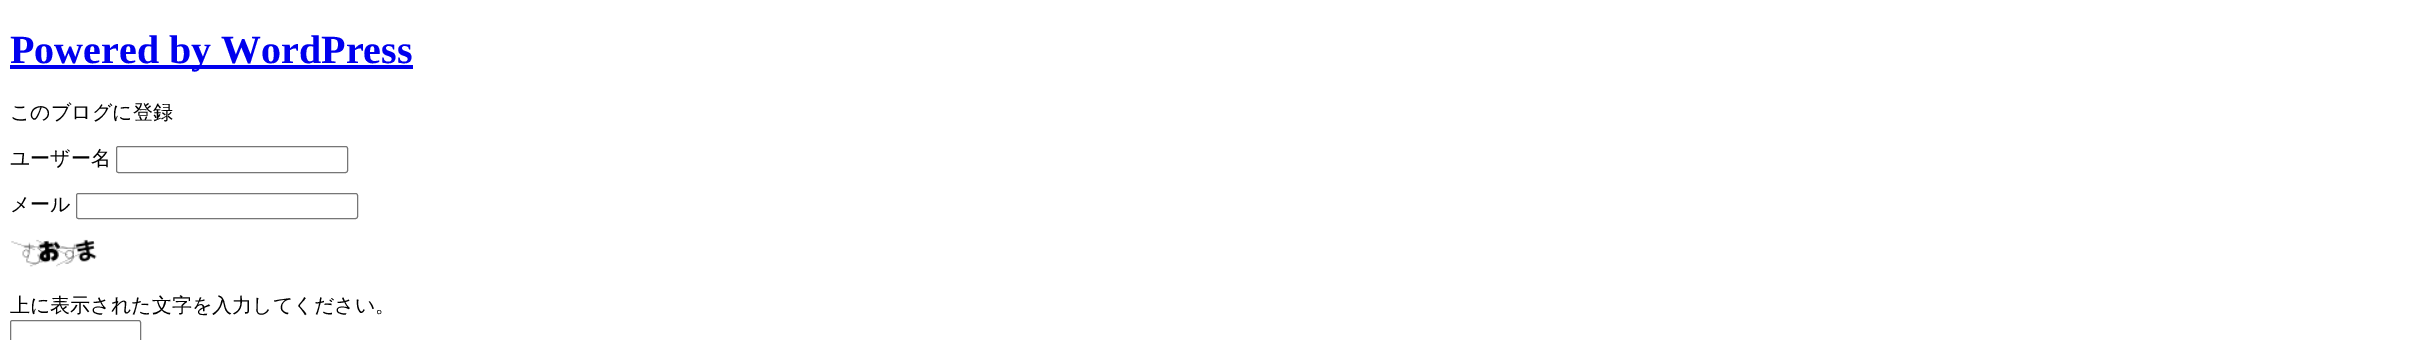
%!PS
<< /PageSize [2415 340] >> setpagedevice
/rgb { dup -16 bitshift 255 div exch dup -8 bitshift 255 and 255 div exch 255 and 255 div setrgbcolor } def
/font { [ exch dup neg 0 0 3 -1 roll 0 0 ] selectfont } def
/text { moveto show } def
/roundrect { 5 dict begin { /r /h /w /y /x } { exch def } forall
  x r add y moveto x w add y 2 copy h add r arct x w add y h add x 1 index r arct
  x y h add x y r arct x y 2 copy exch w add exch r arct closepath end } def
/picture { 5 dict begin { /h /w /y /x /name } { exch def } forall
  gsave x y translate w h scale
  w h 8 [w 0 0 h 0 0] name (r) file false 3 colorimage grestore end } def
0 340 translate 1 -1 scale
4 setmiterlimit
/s1 { /LiberationSerif-Bold 40 font 16#0000EE rgb } def
/s2 { /WenQuanYiZenHei-Medium 20 font 16#000000 rgb } def
16#FFFFFF rgb
0 0 2415 340 rectfill
16#0000EE rgb
10 65 403 4 rectfill
s1
(Powered by WordPress) 10 63 text
s2
(このブログに登録) 10 119 text
(ユーザー名) 10 165 text
16#767676 rgb
116.5 146.5 231 26 2 roundrect stroke
s2
(メール) 10 211 text
16#767676 rgb
76.5 193.5 281 25 2 roundrect stroke
(pic1.raw) 11 239 86 28 picture
s2
(上に表示された文字を入力してください。) 10 312 text
16#767676 rgb
10.5 320.5 130 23 2 roundrect stroke
showpage
